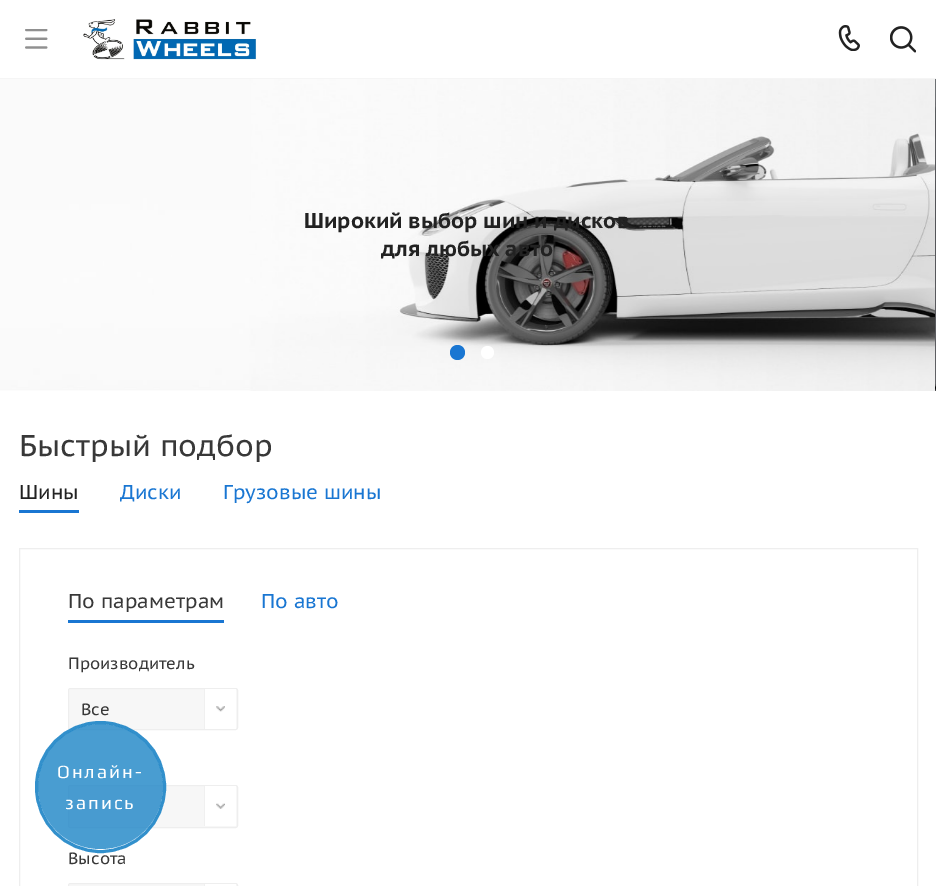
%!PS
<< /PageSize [936 886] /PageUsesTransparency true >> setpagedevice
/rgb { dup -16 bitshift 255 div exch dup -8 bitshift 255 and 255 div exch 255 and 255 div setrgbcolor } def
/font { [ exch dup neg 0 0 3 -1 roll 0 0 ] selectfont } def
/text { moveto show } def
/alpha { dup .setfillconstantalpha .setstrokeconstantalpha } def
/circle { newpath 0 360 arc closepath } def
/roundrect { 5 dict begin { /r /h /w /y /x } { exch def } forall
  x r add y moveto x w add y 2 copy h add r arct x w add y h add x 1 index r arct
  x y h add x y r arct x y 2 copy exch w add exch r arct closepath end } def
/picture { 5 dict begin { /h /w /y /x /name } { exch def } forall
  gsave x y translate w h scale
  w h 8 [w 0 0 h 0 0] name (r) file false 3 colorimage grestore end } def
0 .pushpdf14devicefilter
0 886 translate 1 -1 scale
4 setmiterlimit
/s1 { /PTSansCaption-Bold 21.25 font 16#222222 rgb } def
/s2 { /PTSansCaption-Regular 30 font 16#383838 rgb } def
/s3 { /PTSansCaption-Regular 20 font 16#222222 rgb } def
/s4 { /PTSansCaption-Regular 20 font 16#1976D2 rgb } def
/s5 { /PTSansCaption-Regular 20 font 16#383838 rgb } def
/s6 { /PTSansCaption-Regular 16.25 font 16#383838 rgb } def
16#FFFFFF rgb
0 0 936 886 rectfill
16#F5F5F5 rgb
0 78 936 1 rectfill
(pic1.raw) 25 29 23 20 picture
(pic2.raw) 83 19 174 41 picture
(pic3.raw) 838 25 22 26 picture
(pic4.raw) 890 26 26 27 picture
(pic5.raw) 0 79 935 312 picture
s1
(Широкий выбор шин и дисков) 304 228 text
(для любых авто) 381 256 text
(pic6.raw) 935 79 1 312 picture
16#1976D2 rgb
457.5 352.5 7.5 circle fill
16#FFFFFF rgb
487.5 352.5 6.5 circle fill
s2
(Быстрый подбор) 19 456 text
16#1976D2 rgb
19 510 60 3 rectfill
s3
(Шины) 19 499 text
s4
(Диски) 120 499 text
(Грузовые шины) 223 499 text
16#EEEEEE rgb
19.5 548.5 898 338 rectstroke
s5
(По параметрам) 68 608 text
16#1976D2 rgb
68 620 156 3 rectfill
(По авто) 261 608 text
s6
(Производитель) 68 669 text
16#F7F7F7 rgb
68.5 688.5 169 41 2 roundrect gsave fill grestore
16#EEEEEE rgb
stroke
s6
(Все) 81 715 text
16#FFFFFF rgb
205 689 31 40 rectfill
16#F0F0F0 rgb
204 689 1 40 rectfill
(pic7.raw) 216 706 9 6 picture
16#F7F7F7 rgb
68.5 785.5 169 42 2 roundrect gsave fill grestore
16#EEEEEE rgb
stroke
16#FFFFFF rgb
205 786 31 40 rectfill
16#F0F0F0 rgb
204 786 1 40 rectfill
(pic8.raw) 216 803 9 6 picture
s6
(Высота) 68 864 text
16#F7F7F7 rgb
68.5 883.5 169 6 2 roundrect gsave fill grestore
16#EEEEEE rgb
stroke
16#FFFFFF rgb
204 884 32 2 rectfill
16#F0F0F0 rgb
204 884 1 2 rectfill
0.8 alpha
16#1C84C6 rgb
100.5 786.5 62.5 circle fill
0.9 alpha
3 setlinewidth
36.5 722.5 128 129 64 roundrect stroke
/Play-Regular 18.75 font
1 alpha
16#FFFFFF rgb
57 778 moveto 2 0 (Онлайн-) ashow
65 809 moveto 2 0 (запись) ashow
.poppdf14devicefilter showpage
